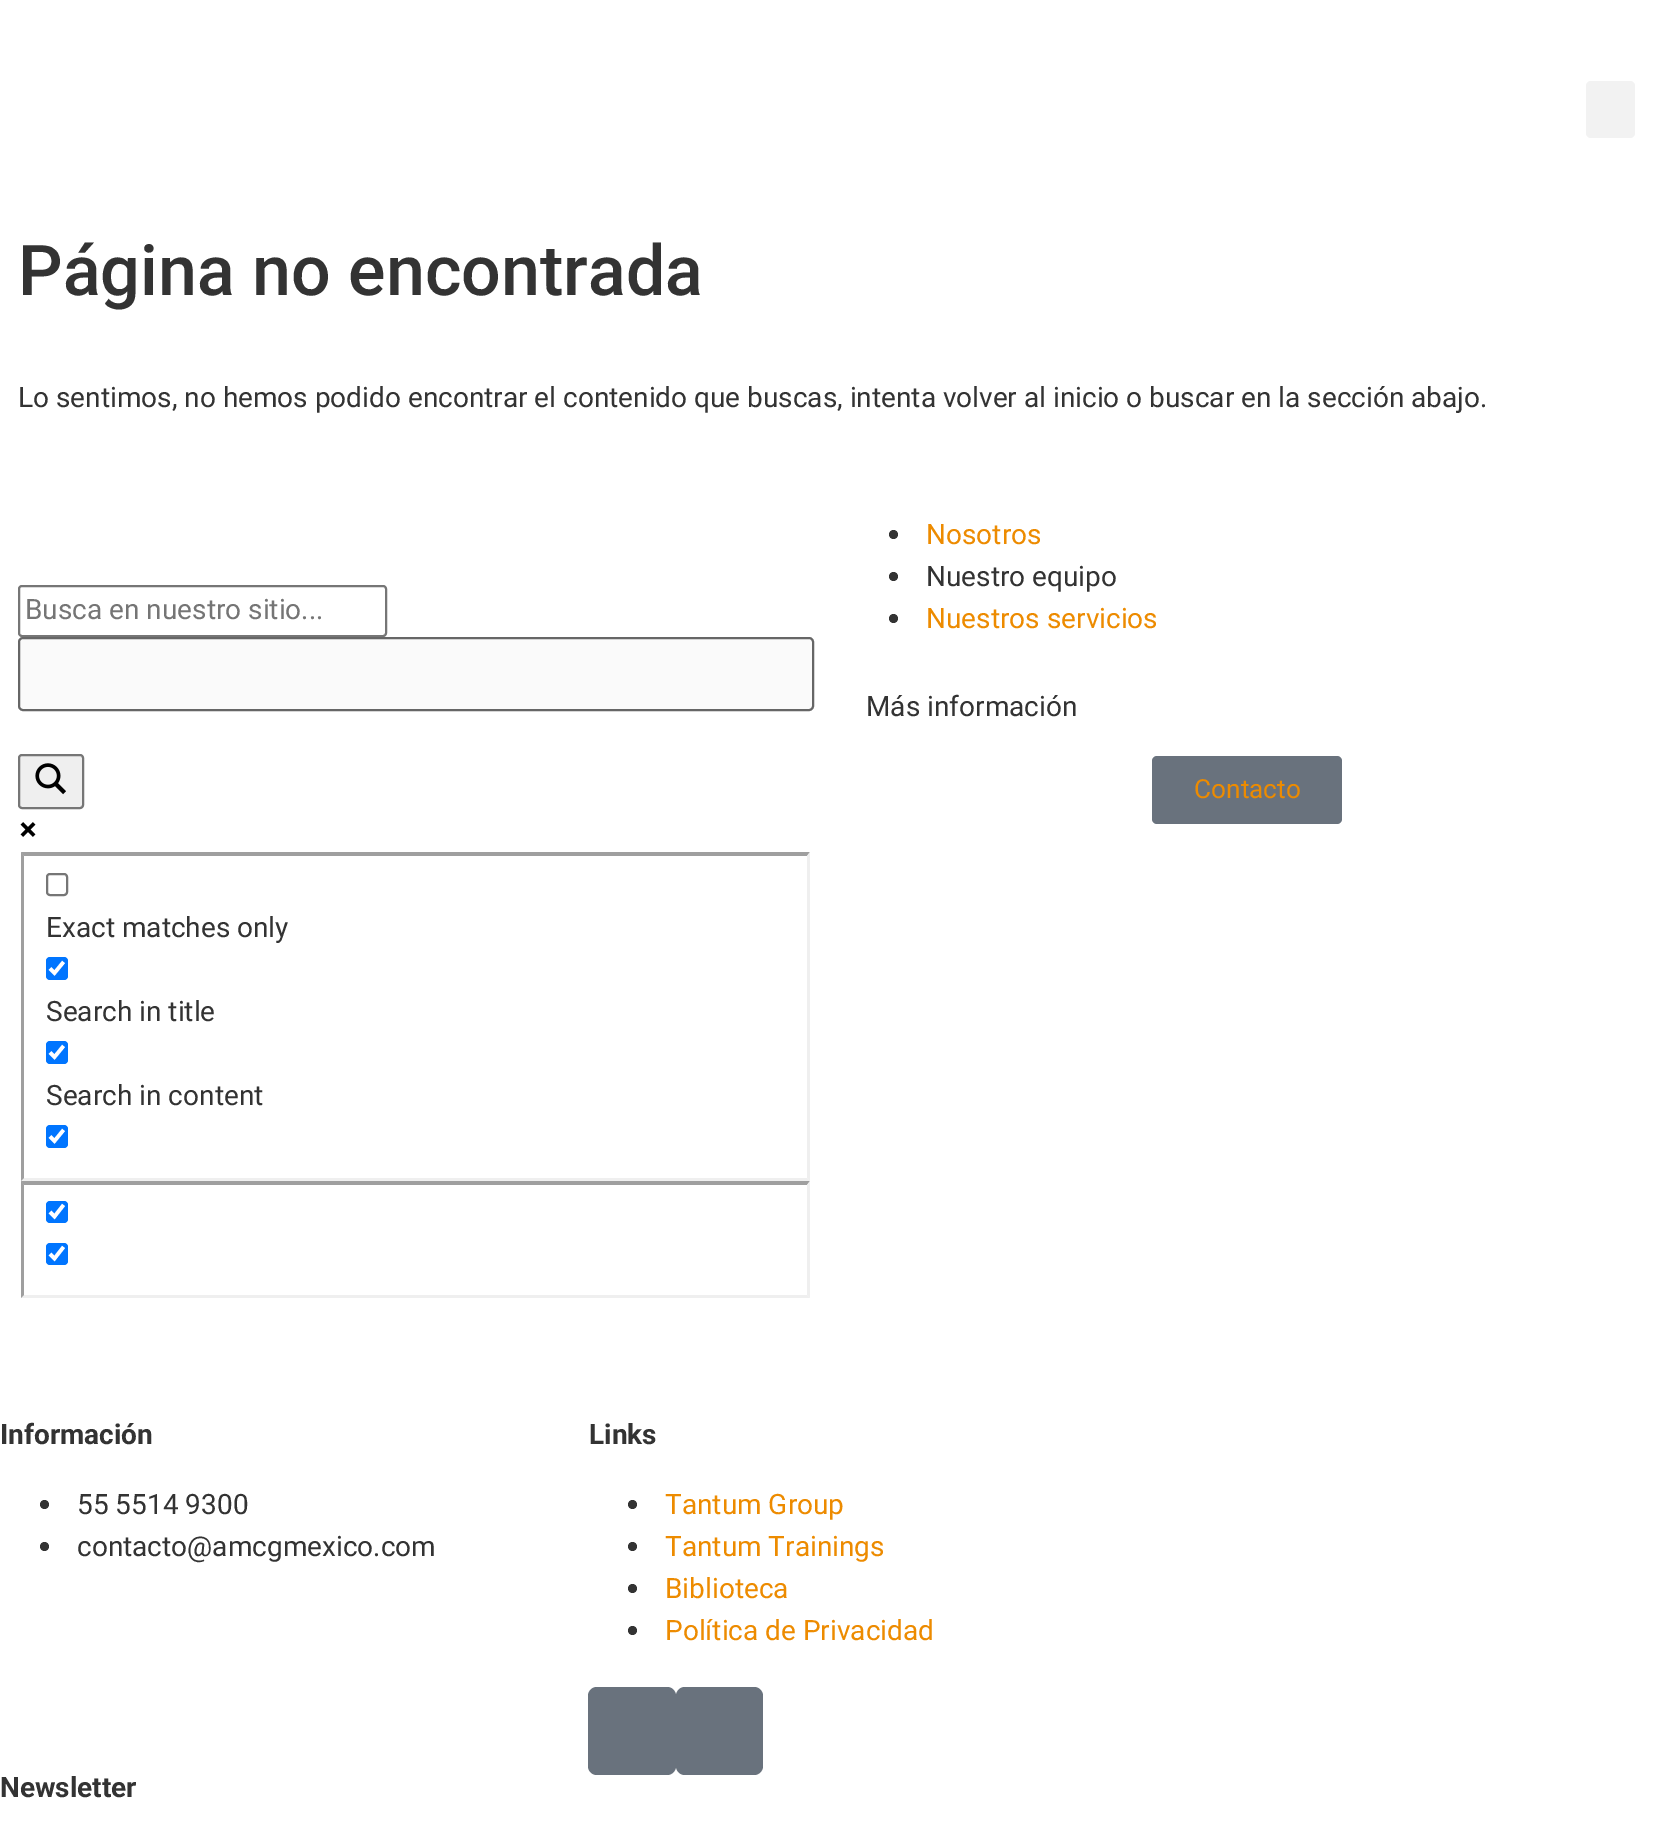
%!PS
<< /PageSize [1661 1830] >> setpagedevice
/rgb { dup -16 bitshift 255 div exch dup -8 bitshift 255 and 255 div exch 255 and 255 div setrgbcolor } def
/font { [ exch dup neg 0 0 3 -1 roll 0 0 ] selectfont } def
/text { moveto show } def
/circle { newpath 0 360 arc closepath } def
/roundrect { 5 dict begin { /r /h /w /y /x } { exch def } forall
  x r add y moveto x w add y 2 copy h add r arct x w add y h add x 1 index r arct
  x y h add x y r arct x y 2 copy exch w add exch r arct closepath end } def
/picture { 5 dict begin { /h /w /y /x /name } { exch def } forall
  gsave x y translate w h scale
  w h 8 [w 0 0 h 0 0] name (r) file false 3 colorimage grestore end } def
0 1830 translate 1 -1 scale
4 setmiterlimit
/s1 { /Roboto-Medium 70 font 16#333333 rgb } def
/s2 { /Roboto-Regular 28 font 16#333333 rgb } def
/s3 { /Roboto-Regular 28 font 16#757575 rgb } def
/s4 { /Roboto-Regular 28 font 16#ED8B00 rgb } def
/s5 { /Roboto-Regular 26.25 font 16#ED8B00 rgb } def
/s6 { /Roboto-Bold 28 font 16#333333 rgb } def
16#FFFFFF rgb
0 0 1661 1830 rectfill
16#F2F2F2 rgb
1586 81 49 57 5 roundrect fill
s1
(Página no encontrada) 18 295 text
s2
(Lo sentimos, no hemos podido encontrar el contenido que buscas, intenta volver al inicio o buscar en la sección abajo.) 18 407 text
16#767676 rgb
2 setlinewidth
19 586 367 50 3 roundrect stroke
s3
(Busca en nuestro sitio...) 25 619 text
16#FAFAFA rgb
19 638 794 72 4 roundrect gsave fill grestore
16#666666 rgb
stroke
16#EFEFEF rgb
19 755 64 53 3 roundrect gsave fill grestore
16#767676 rgb
stroke
(pic1.raw) 35 763 31 32 picture
(pic2.raw) 20 822 16 15 picture
16#9F9F9F rgb
21 852 moveto 810 852 lineto 807 856 lineto 24 856 lineto closepath fill
16#EFEFEF rgb
810 852 moveto 810 1181 lineto 807 1178 lineto 807 856 lineto closepath fill
810 1181 moveto 21 1181 lineto 24 1178 lineto 807 1178 lineto closepath fill
16#9F9F9F rgb
21 1181 moveto 21 852 lineto 24 856 lineto 24 1178 lineto closepath fill
16#767676 rgb
47 874 20 21 3 roundrect stroke
s2
(Exact matches only) 46 937 text
16#0075FF rgb
46 957 22 23 4 roundrect fill
16#FFFFFF rgb
3.6 setlinewidth
50 968.5 moveto 54.5 973 lineto 63.5 962 lineto stroke
s2
(Search in title) 46 1021 text
16#0075FF rgb
46 1041 22 23 4 roundrect fill
16#FFFFFF rgb
50 1052.5 moveto 54.5 1057 lineto 63.5 1046 lineto stroke
s2
(Search in content) 46 1105 text
16#0075FF rgb
46 1125 22 23 4 roundrect fill
16#FFFFFF rgb
50 1136.5 moveto 54.5 1141 lineto 63.5 1130 lineto stroke
16#9F9F9F rgb
21 1181 moveto 810 1181 lineto 807 1185 lineto 24 1185 lineto closepath fill
16#EFEFEF rgb
810 1181 moveto 810 1298 lineto 807 1295 lineto 807 1185 lineto closepath fill
810 1298 moveto 21 1298 lineto 24 1295 lineto 807 1295 lineto closepath fill
16#9F9F9F rgb
21 1298 moveto 21 1181 lineto 24 1185 lineto 24 1295 lineto closepath fill
16#0075FF rgb
46 1201 22 22 4 roundrect fill
16#FFFFFF rgb
50 1212 moveto 54.5 1216.5 lineto 63.5 1205 lineto stroke
16#0075FF rgb
46 1243 22 22 4 roundrect fill
16#FFFFFF rgb
50 1254 moveto 54.5 1258.5 lineto 63.5 1247 lineto stroke
16#333333 rgb
893.5 534.5 4.5 circle fill
s4
(Nosotros) 926 544 text
16#333333 rgb
893.5 576.5 4.5 circle fill
(Nuestro equipo) 926 586 text
893.5 618.5 4.5 circle fill
s4
(Nuestros servicios) 926 628 text
s2
(Más información) 866 716 text
16#69727D rgb
1152 756 190 68 5 roundrect fill
s5
(Contacto) 1194 798 text
s6
(Información) 0 1444 text
44.5 1504.5 4.5 circle fill
s2
(55 5514 9300) 77 1514 text
44.5 1546.5 4.5 circle fill
(contacto@amcgmexico.com) 77 1556 text
s6
(Links) 589 1444 text
632.5 1504.5 4.5 circle fill
s4
(Tantum Group) 665 1514 text
16#333333 rgb
632.5 1546.5 4.5 circle fill
s4
(Tantum Trainings) 665 1556 text
16#333333 rgb
632.5 1588.5 4.5 circle fill
s4
(Biblioteca) 665 1598 text
16#333333 rgb
632.5 1630.5 4.5 circle fill
s4
(Política de Privacidad) 665 1640 text
16#69727D rgb
588 1687 88 88 9 roundrect fill
676 1687 87 88 9 roundrect fill
s6
(Newsletter) 0 1797 text
showpage
